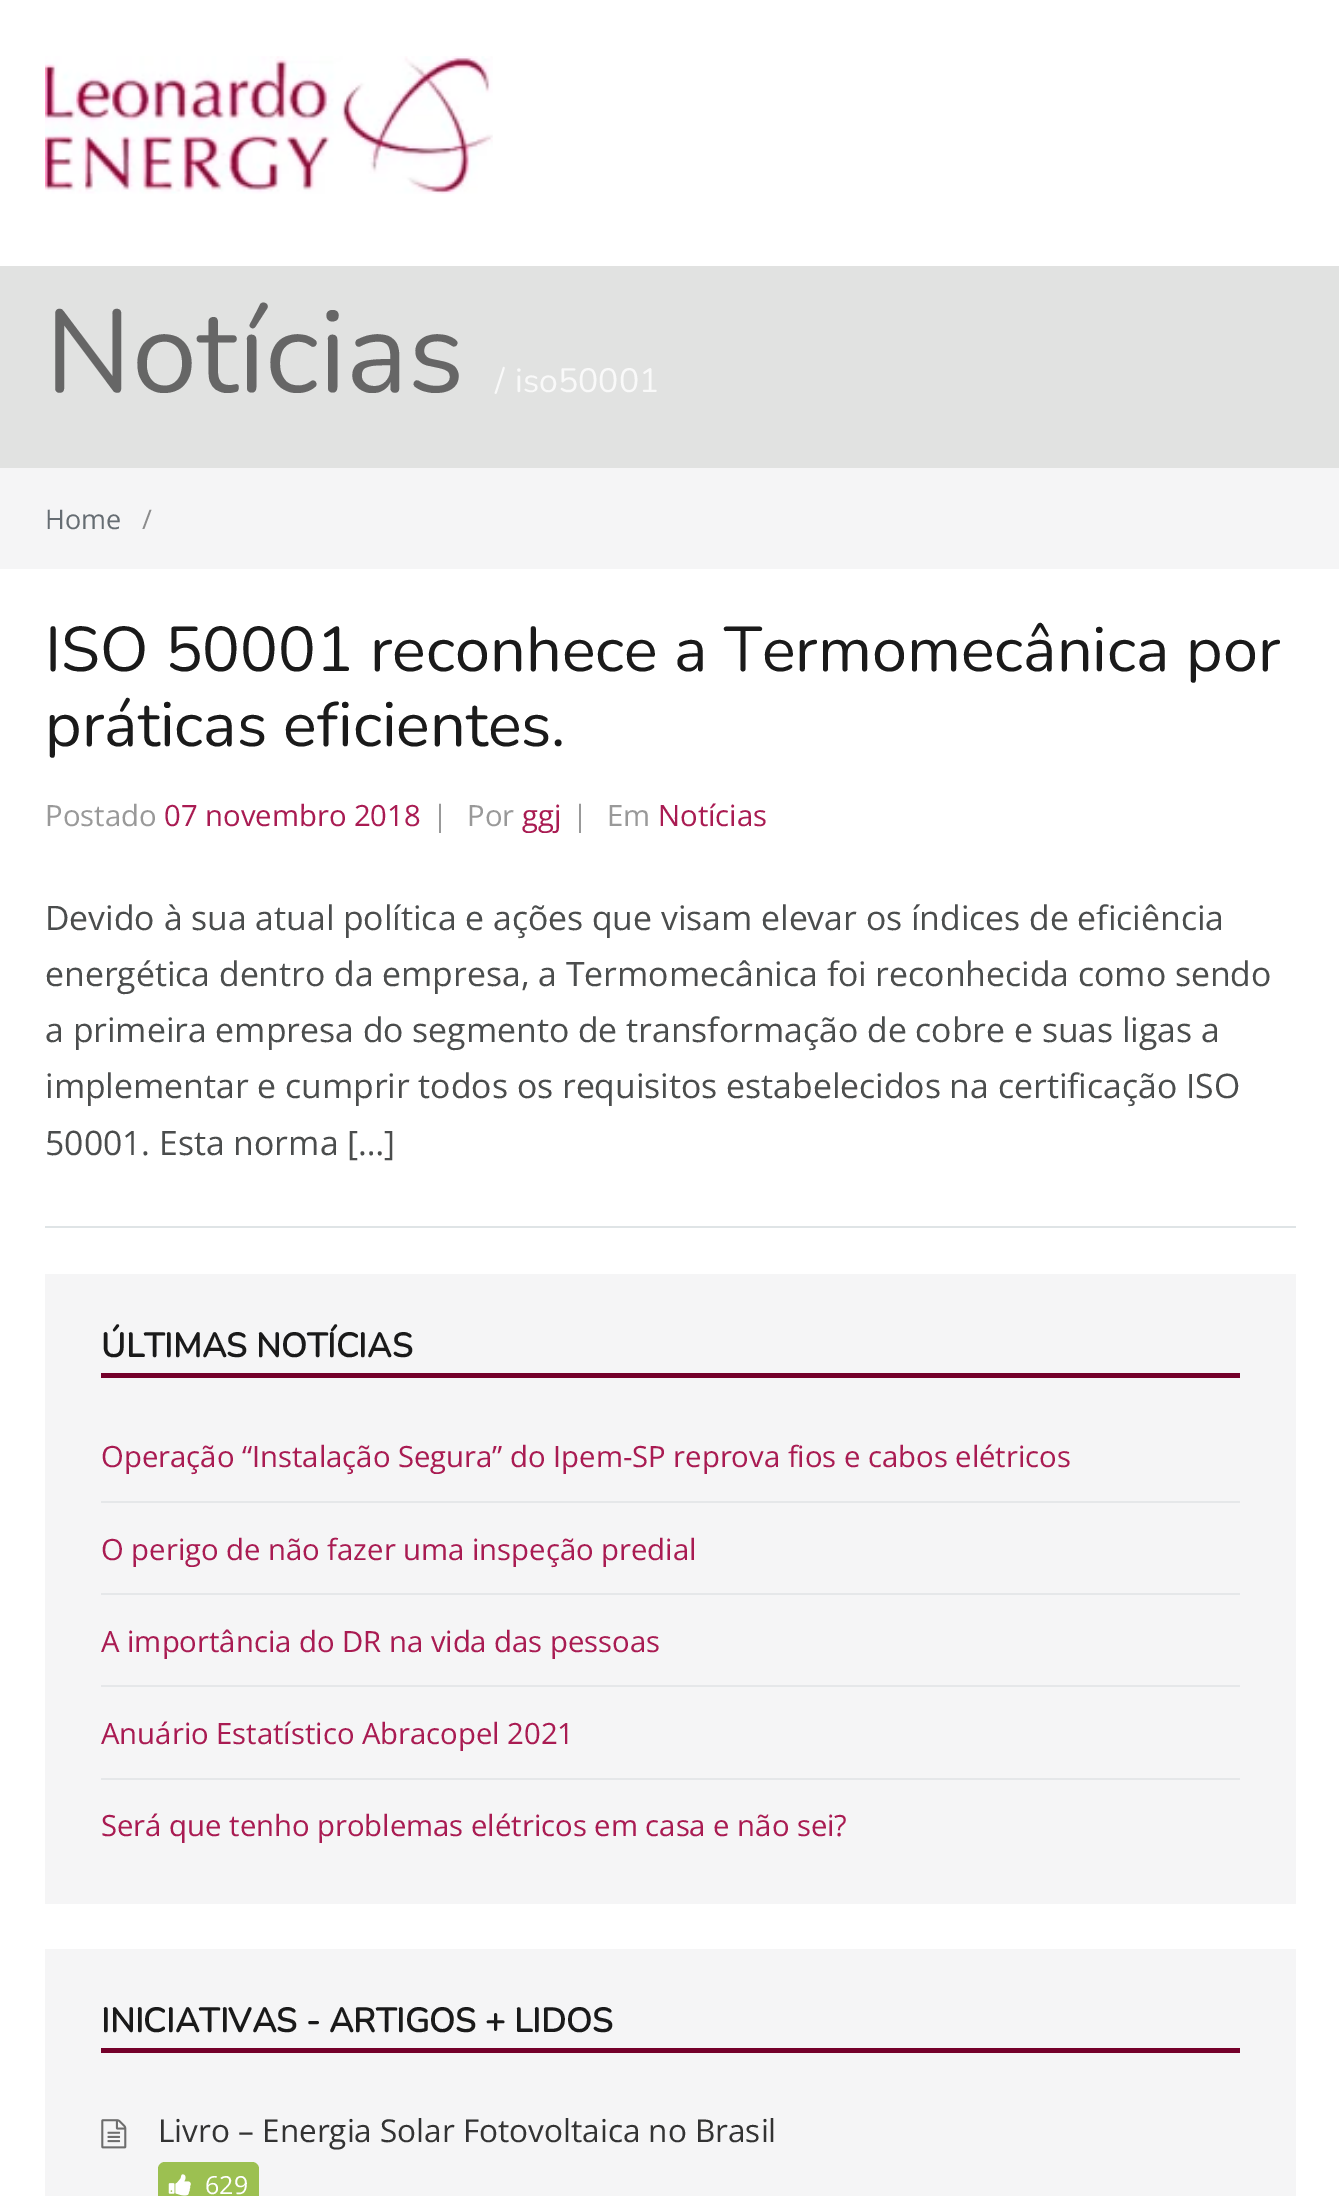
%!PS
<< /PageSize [1339 2196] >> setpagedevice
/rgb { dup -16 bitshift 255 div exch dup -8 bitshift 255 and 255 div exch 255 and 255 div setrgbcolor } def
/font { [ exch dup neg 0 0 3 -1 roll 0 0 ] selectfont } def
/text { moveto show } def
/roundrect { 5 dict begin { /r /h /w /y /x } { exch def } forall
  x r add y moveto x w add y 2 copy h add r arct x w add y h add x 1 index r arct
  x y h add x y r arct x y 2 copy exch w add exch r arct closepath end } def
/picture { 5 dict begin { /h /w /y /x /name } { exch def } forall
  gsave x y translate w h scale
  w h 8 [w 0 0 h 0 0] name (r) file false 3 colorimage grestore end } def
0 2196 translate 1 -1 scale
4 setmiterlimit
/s1 { /Nunito-ExtraLight 117 font 16#666666 rgb } def
/s2 { /Nunito-ExtraLight 33.75 font 16#F9F9F9 rgb } def
/s3 { /OpenSans-Regular 27 font 16#666D73 rgb } def
/s4 { /OpenSans-Regular 27 font 16#8C8C8C rgb } def
/s5 { /Nunito-ExtraLight 63 font 16#1A1A1A rgb } def
/s6 { /OpenSans-Regular 29.25 font 16#999999 rgb } def
/s7 { /OpenSans-Regular 29.25 font 16#A91B52 rgb } def
/s8 { /OpenSans-Regular 33.75 font 16#4B4D4D rgb } def
/s9 { /Nunito-Bold 33.75 font 16#1A1A1A rgb } def
/s10 { /OpenSans-Regular 31.5 font 16#333333 rgb } def
/s11 { /OpenSans-Regular 25 font 16#FFFFFF rgb } def
16#FFFFFF rgb
0 0 1339 2196 rectfill
(pic1.raw) 45 56 448 138 picture
16#E1E2E1 rgb
0 266 1339 202 rectfill
s1
(Notícias) 45 392 text
s2
(/) 495 392 text
(iso50001) 515 392 text
16#F5F5F6 rgb
0 468 1339 101 rectfill
s3
(Home) 45 529 text
s4
(/) 142 529 text
16#DFE4E6 rgb
45 1226 1251 2 rectfill
s5
(ISO 50001 reconhece a Termomecânica por) 45 671 text
(práticas eficientes.) 45 746 text
s6
(Postado) 45 826 text
s7
(07 novembro 2018) 164 826 text
s6
(|) 432 826 text
(Por) 467 826 text
s7
(ggj) 522 826 text
s6
(|) 572 826 text
(Em) 607 826 text
s7
(Notícias) 658 826 text
s8
(Devido à sua atual política e ações que visam elevar os índices de eficiência) 45 930 text
(energética dentro da empresa, a Termomecânica foi reconhecida como sendo) 45 986 text
(a primeira empresa do segmento de transformação de cobre e suas ligas a) 45 1042 text
(implementar e cumprir todos os requisitos estabelecidos na certificação ISO) 45 1098 text
(50001. Esta norma […]) 45 1155 text
16#F5F5F6 rgb
45 1274 1251 630 rectfill
16#74002A rgb
101 1373 1139 5 rectfill
s9
(ÚLTIMAS NOTÍCIAS) 101 1357 text
16#E5E7E9 rgb
101 1501 1139 2 rectfill
s7
(Operação “Instalação Segura” do Ipem-SP reprova fios e cabos elétricos) 101 1467 text
16#E5E7E9 rgb
101 1593 1139 2 rectfill
s7
(O perigo de não fazer uma inspeção predial) 101 1560 text
16#E5E7E9 rgb
101 1685 1139 2 rectfill
s7
(A importância do DR na vida das pessoas) 101 1652 text
16#E5E7E9 rgb
101 1778 1139 2 rectfill
s7
(Anuário Estatístico Abracopel 2021) 101 1744 text
(Será que tenho problemas elétricos em casa e não sei?) 101 1836 text
16#F5F5F6 rgb
45 1949 1251 247 rectfill
16#74002A rgb
101 2048 1139 5 rectfill
s9
(INICIATIVAS - ARTIGOS + LIDOS) 101 2032 text
(pic2.raw) 101 2119 26 30 picture
s10
(Livro – Energia Solar Fotovoltaica no Brasil) 158 2142 text
16#9CC051 rgb
158 2162 101 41 7 roundrect fill
(pic3.raw) 168 2174 23 22 picture
s11
(629) 205 2194 text
showpage
